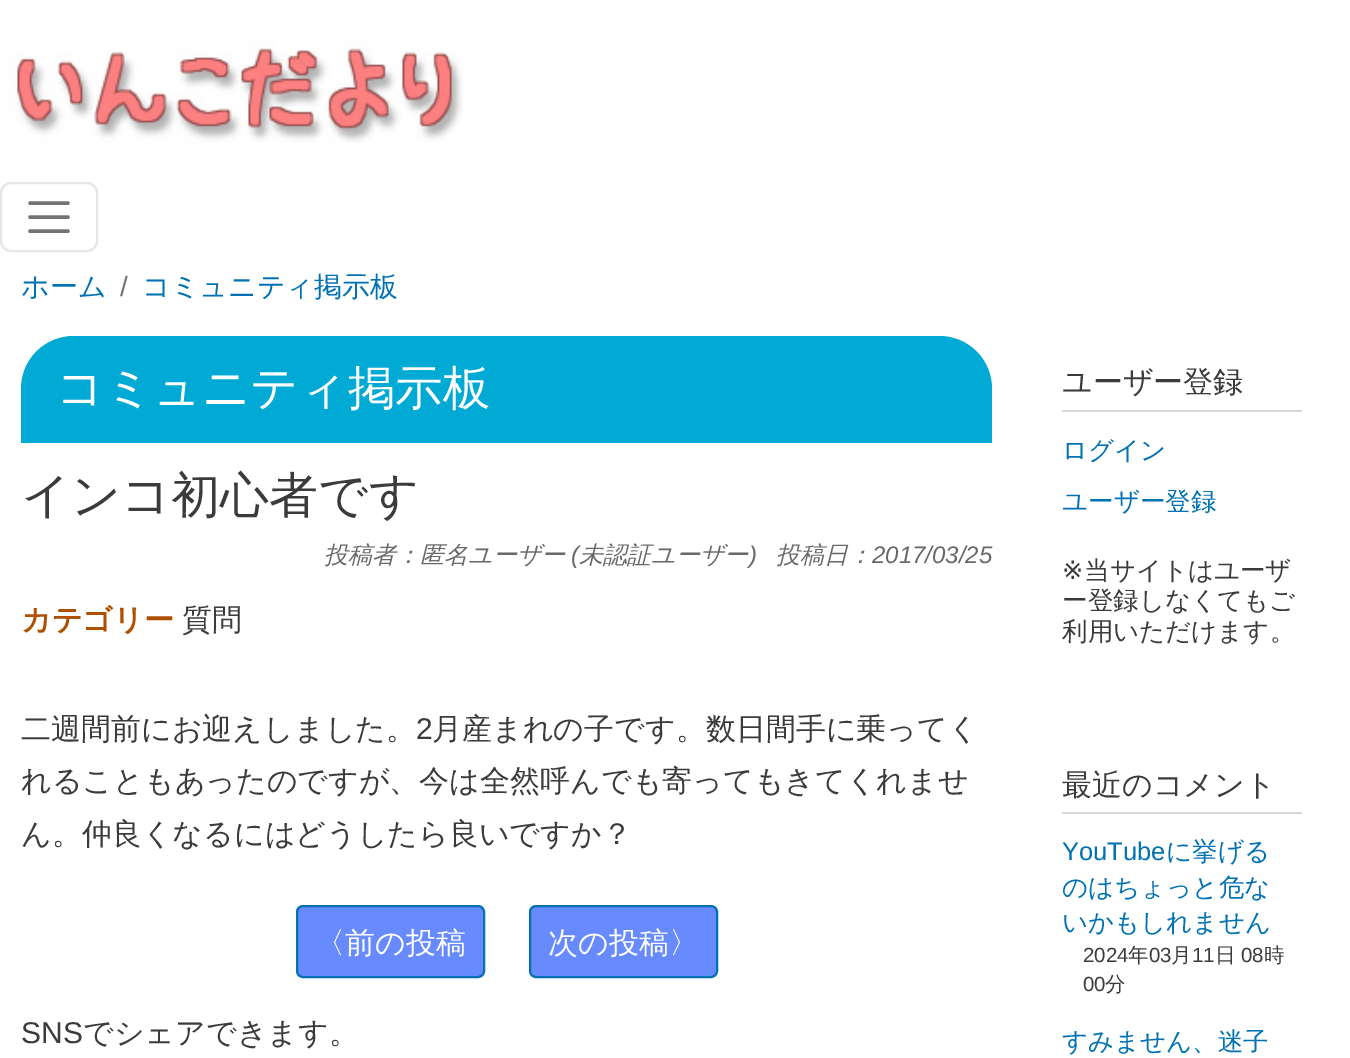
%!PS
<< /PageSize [1350 1058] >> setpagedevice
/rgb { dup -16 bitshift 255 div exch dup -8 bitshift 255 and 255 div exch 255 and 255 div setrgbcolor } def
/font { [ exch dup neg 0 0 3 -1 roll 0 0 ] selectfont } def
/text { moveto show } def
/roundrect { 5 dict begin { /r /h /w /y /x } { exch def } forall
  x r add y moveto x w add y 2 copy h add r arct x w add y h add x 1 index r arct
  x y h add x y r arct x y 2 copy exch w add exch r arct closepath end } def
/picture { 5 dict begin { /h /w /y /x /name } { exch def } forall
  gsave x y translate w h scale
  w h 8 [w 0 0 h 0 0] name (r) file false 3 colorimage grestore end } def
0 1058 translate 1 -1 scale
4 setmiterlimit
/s1 { /WenQuanYiZenHei-Medium 28 font 16#0071B3 rgb } def
/s2 { /LiberationSans-Regular 28 font 16#6C757D rgb } def
/s3 { /WenQuanYiZenHei-Medium 47.5 font 16#FFFFFF rgb } def
/s4 { /WenQuanYiZenHei-Medium 49 font 16#3B3B3B rgb } def
/s5 { /WenQuanYiZenHei-MediumItalic 24 font 16#68696B rgb } def
/s6 { /LiberationSans-Italic 24 font 16#68696B rgb } def
/s7 { /WenQuanYiZenHei-Bold 30 font 16#AE5000 rgb } def
/s8 { /WenQuanYiZenHei-Medium 30 font 16#3B3B3B rgb } def
/s9 { /LiberationSans-Regular 30 font 16#3B3B3B rgb } def
/s10 { /WenQuanYiZenHei-Medium 30 font 16#FFFFFF rgb } def
/s11 { /WenQuanYiZenHei-Medium 25.5 font 16#0071B3 rgb } def
/s12 { /DejaVuSans-Regular 25.5 font 16#3B3B3B rgb } def
/s13 { /WenQuanYiZenHei-Medium 25.5 font 16#3B3B3B rgb } def
/s14 { /LiberationSans-Regular 25.5 font 16#0071B3 rgb } def
/s15 { /LiberationSans-Regular 20.5 font 16#3B3B3B rgb } def
/s16 { /WenQuanYiZenHei-Medium 20.5 font 16#3B3B3B rgb } def
16#FFFFFF rgb
0 0 1350 1058 rectfill
(pic1.raw) 9 39 454 104 picture
16#E6E6E6 rgb
2 setlinewidth
1 183 96 68 10 roundrect stroke
16#737373 rgb
3.5 setlinewidth
1 setlinecap
30 203 moveto 68 203 lineto 30 217 moveto 68 217 lineto 30 231 moveto 68 231 lineto stroke
s1
(ホーム) 21 296 text
s2
(/) 120 296 text
s1
(コミュニティ掲示板) 142 296 text
16#00AAD4 rgb
74 336 moveto 939 336 lineto 968.5 336 992 359.5 992 389 curveto 992 443 lineto 21 443 lineto 21 389 lineto 21 359.5 44.5 336 74 336 curveto closepath fill
s3
(コミュニティ掲示板) 56 404 text
s4
(インコ初心者です) 21 512 text
s5
(投稿者：匿名ユーザー) 324 563 text
s6
(\() 571 563 text
s5
(未認証ユーザー) 579 563 text
s6
(\)) 749 563 text
s5
(投稿日：) 776 563 text
s6
(2017/03/25) 872 563 text
s7
(カテゴリー) 21 630 text
s8
(質問) 182 630 text
(二週間前にお迎えしました。) 21 739 text
s9
(2) 416 739 text
s8
(月産まれの子です。数日間手に乗ってく) 432 739 text
(れることもあったのですが、今は全然呼んでも寄ってもきてくれませ) 21 791 text
(ん。仲良くなるにはどうしたら良いですか？) 21 844 text
16#678AFF rgb
297 906 187 71 6 roundrect gsave fill grestore
16#0071B3 rgb
2 setlinewidth
0 setlinecap
stroke
s10
(〈前の投稿) 315 953 text
16#678AFF rgb
530 906 187 71 6 roundrect gsave fill grestore
16#0071B3 rgb
stroke
s10
(次の投稿〉) 548 953 text
s9
(SNS) 21 1043 text
s8
(でシェアできます。) 83 1043 text
16#D6D6D6 rgb
1062 410 240 2 rectfill
s8
(ユーザー登録) 1062 392 text
s11
(ログイン) 1062 459 text
(ユーザー登録) 1062 510 text
s12
(※) 1062 579 text
s13
(当サイトはユーザ) 1084 579 text
(ー登録しなくてもご) 1062 609 text
(利用いただけます。) 1062 640 text
16#D6D6D6 rgb
1062 812 240 2 rectfill
s8
(最近のコメント) 1062 795 text
s14
(YouTube) 1062 860 text
s11
(に挙げる) 1166 860 text
(のはちょっと危な) 1062 896 text
(いかもしれません) 1062 931 text
s15
(2024) 1083 962 text
s16
(年) 1128 962 text
s15
(03) 1149 962 text
s16
(月) 1171 962 text
s15
(11) 1192 962 text
s16
(日) 1215 962 text
s15
(08) 1241 962 text
s16
(時) 1264 962 text
s15
(00) 1083 991 text
s16
(分) 1105 991 text
s11
(すみません、迷子) 1062 1050 text
showpage
